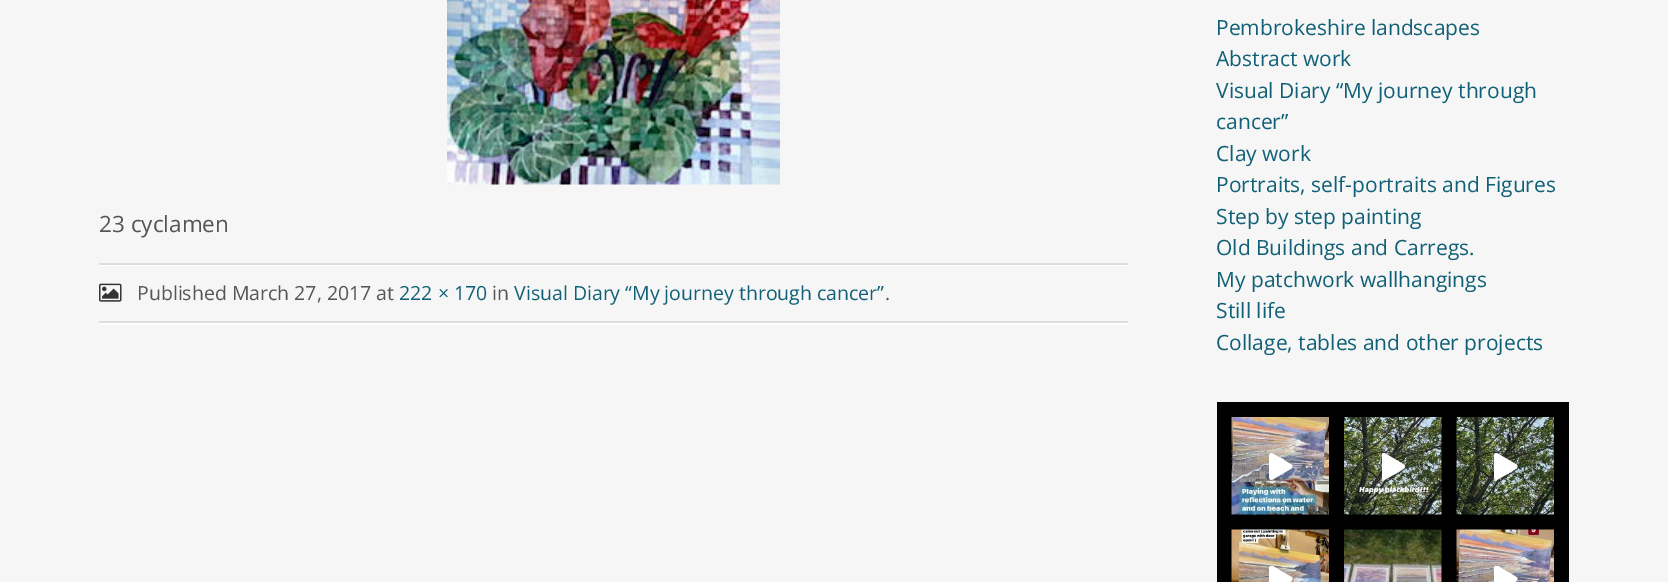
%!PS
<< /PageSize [1668 582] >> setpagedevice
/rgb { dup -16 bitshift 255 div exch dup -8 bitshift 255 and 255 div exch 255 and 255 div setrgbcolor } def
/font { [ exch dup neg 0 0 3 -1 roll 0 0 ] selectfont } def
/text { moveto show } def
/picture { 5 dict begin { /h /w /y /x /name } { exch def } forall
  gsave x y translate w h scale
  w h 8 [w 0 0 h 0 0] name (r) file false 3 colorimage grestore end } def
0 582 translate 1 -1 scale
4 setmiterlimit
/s1 { /OpenSans-Regular 22.5 font 16#555555 rgb } def
/s2 { /OpenSans-Regular 19.5 font 16#555555 rgb } def
/s3 { /OpenSans-Regular 19.5 font 16#106177 rgb } def
/s4 { /OpenSans-Regular 21 font 16#106177 rgb } def
16#F6F6F6 rgb
0 0 1668 582 rectfill
(pic1.raw) 447 0 333 185 picture
s1
(23 cyclamen) 99 232 text
16#FFFFFF rgb
99 265 1029 1 rectfill
16#DDDDDD rgb
99 263 1029 2 rectfill
(pic2.raw) 99 283 23 19 picture
s2
(Published March 27, 2017 at) 137 300 text
s3
(222 × 170) 399 300 text
s2
(in) 492 300 text
s3
(Visual Diary “My journey through cancer”) 514 300 text
s2
(.) 885 300 text
16#FFFFFF rgb
99 323 1029 2 rectfill
16#DDDDDD rgb
99 321 1029 2 rectfill
s4
(Pembrokeshire landscapes) 1216 35 text
(Abstract work) 1216 66 text
(Visual Diary “My journey through) 1216 98 text
(cancer”) 1216 129 text
(Clay work) 1216 161 text
(Portraits, self-portraits and Figures) 1216 192 text
(Step by step painting) 1216 224 text
(Old Buildings and Carregs.) 1216 255 text
(My patchwork wallhangings) 1216 287 text
(Still life) 1216 318 text
(Collage, tables and other projects) 1216 350 text
16#000000 rgb
1217 402 352 180 rectfill
(pic3.raw) 1231 417 98 98 picture
(pic4.raw) 1269 453 24 27 picture
(pic5.raw) 1344 417 98 98 picture
(pic6.raw) 1382 453 24 27 picture
(pic7.raw) 1456 417 98 98 picture
(pic8.raw) 1494 453 24 27 picture
(pic9.raw) 1231 529 98 53 picture
(pic10.raw) 1269 566 24 16 picture
(pic11.raw) 1344 529 98 53 picture
(pic12.raw) 1456 529 98 53 picture
(pic13.raw) 1494 566 24 16 picture
showpage
